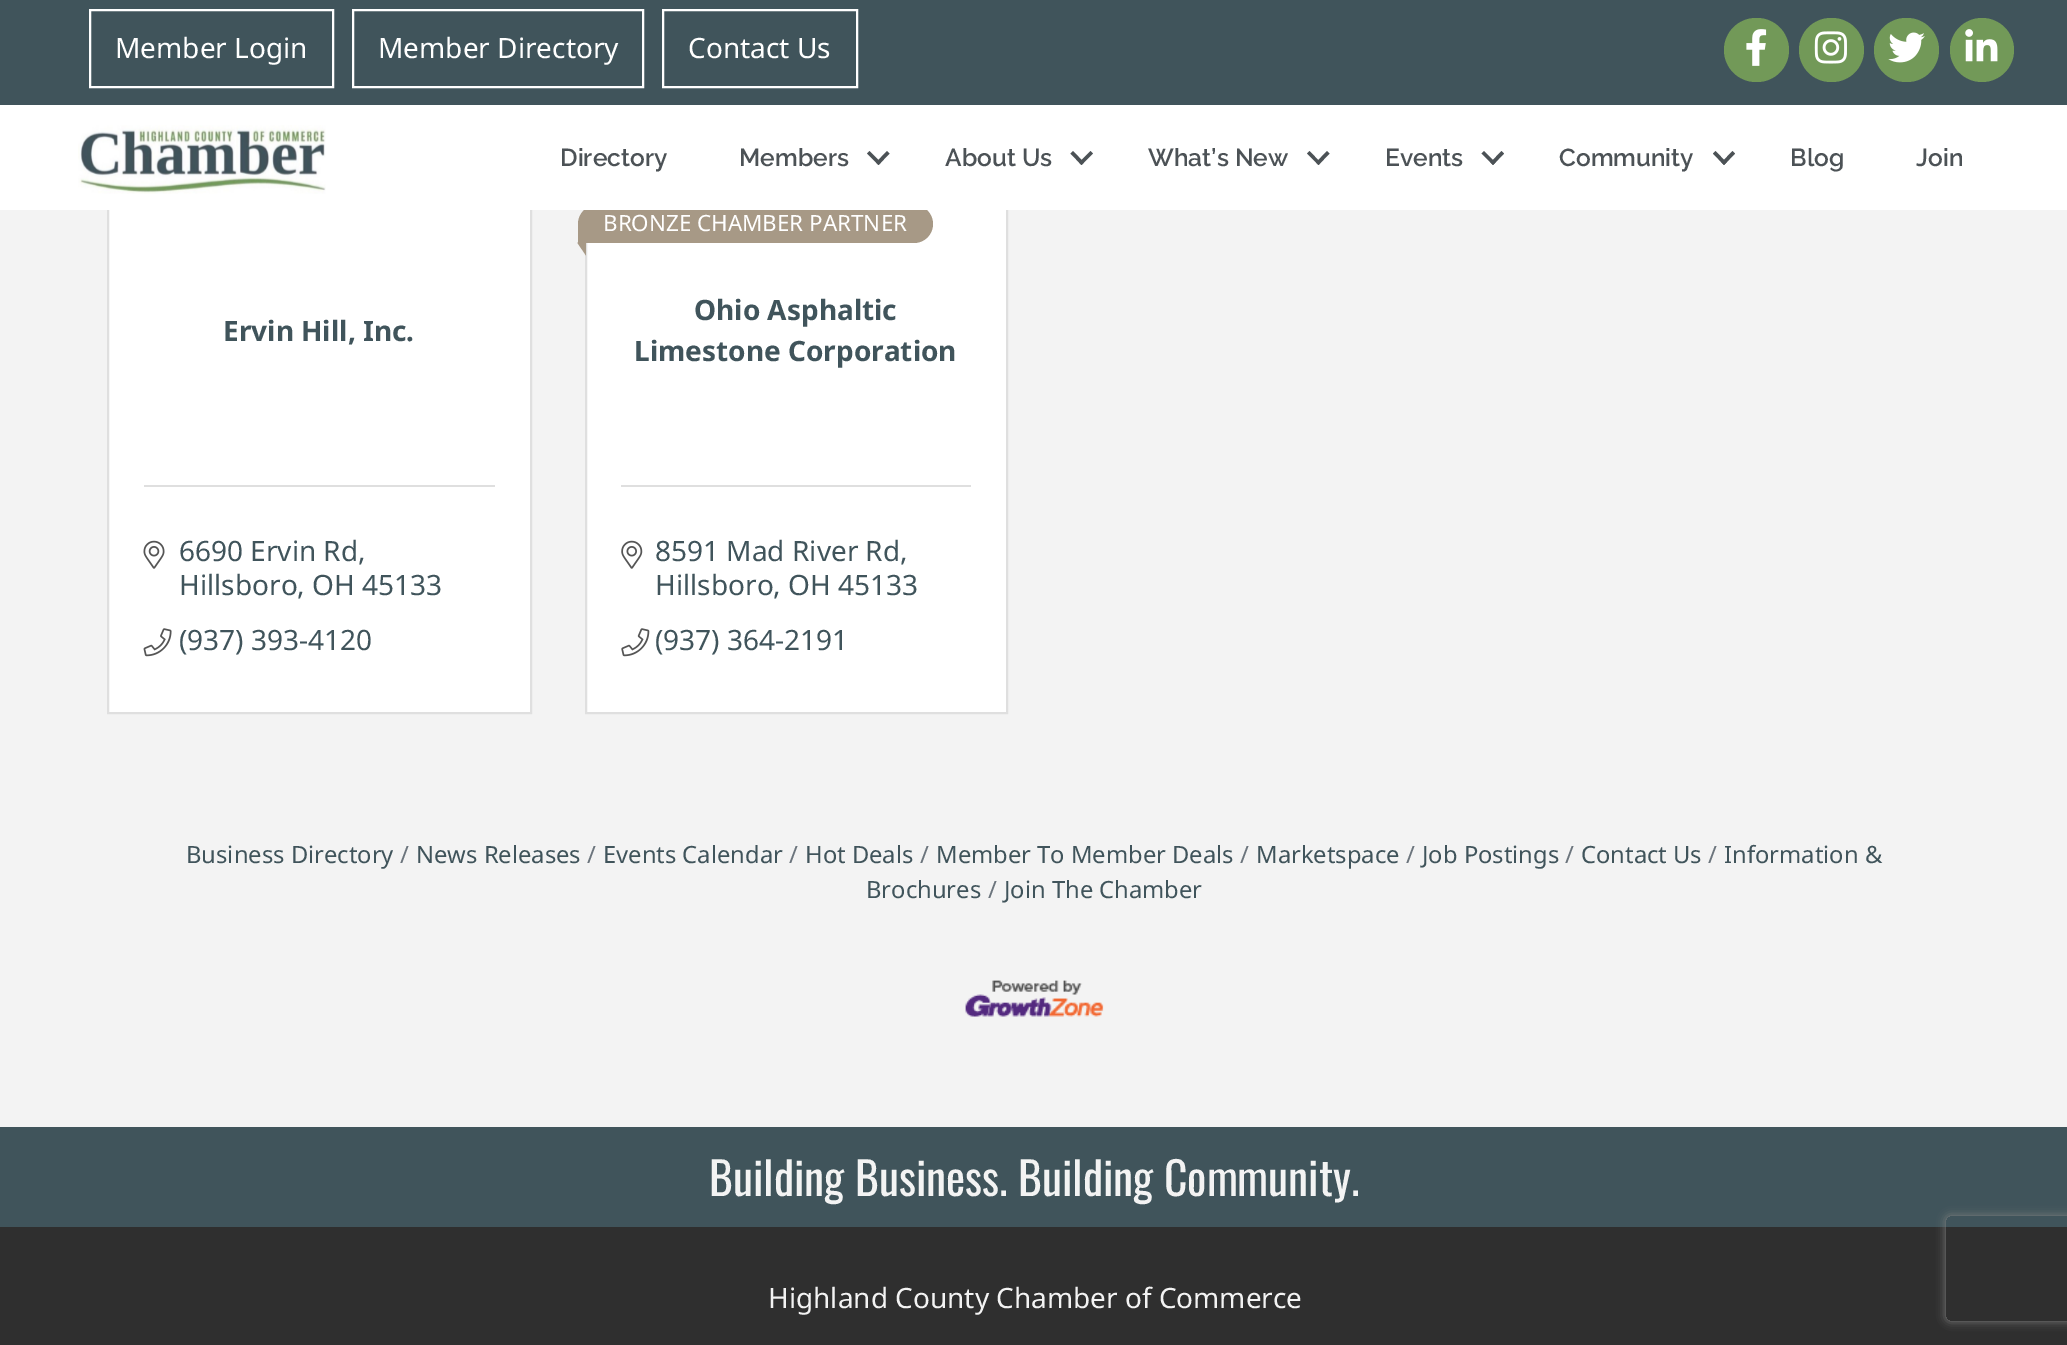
%!PS
<< /PageSize [2067 1345] /PageUsesTransparency true >> setpagedevice
/rgb { dup -16 bitshift 255 div exch dup -8 bitshift 255 and 255 div exch 255 and 255 div setrgbcolor } def
/font { [ exch dup neg 0 0 3 -1 roll 0 0 ] selectfont } def
/text { moveto show } def
/alpha { dup .setfillconstantalpha .setstrokeconstantalpha } def
/circle { newpath 0 360 arc closepath } def
/roundrect { 5 dict begin { /r /h /w /y /x } { exch def } forall
  x r add y moveto x w add y 2 copy h add r arct x w add y h add x 1 index r arct
  x y h add x y r arct x y 2 copy exch w add exch r arct closepath end } def
/shadow { 12 dict begin { /a /b /q /h /w /y /x } { exch def } forall gsave /was 0 def
  9 -2 -9 { dup b mul 4 div /e exch def 1 sub .425 mul 2.718 exch exp 1 add a .99 .min exch div /now exch def
    1 1 now sub 1 was sub div sub alpha /was now def
    w h .min e 2 mul add 0 gt { x e sub y e sub w e 2 mul add h e 2 mul add
      q e add b .6 mul add w h .min 2 div e add .min 0 .max roundrect fill } if } for grestore end } def
/picture { 5 dict begin { /h /w /y /x /name } { exch def } forall
  gsave x y translate w h scale
  w h 8 [w 0 0 h 0 0] name (r) file false 3 colorimage grestore end } def
0 .pushpdf14devicefilter
0 1345 translate 1 -1 scale
4 setmiterlimit
/s1 { /NotoSans-Regular 28 font 16#FFFFFF rgb } def
/s2 { /Raleway-SemiBold 24.5 font 16#4C5256 rgb } def
/s3 { /NotoSans-Bold 28 font 16#40545B rgb } def
/s4 { /NotoSans-Regular 28 font 16#40545B rgb } def
/s5 { /NotoSans-Regular 22.4 font 16#FFFFFF rgb } def
/s6 { /NotoSans-Regular 23.75 font 16#6C757D rgb } def
/s7 { /NotoSans-Regular 23.75 font 16#40545B rgb } def
/s8 { /Oswald-Regular 45.5 font 16#F3F3F3 rgb } def
/s9 { /NotoSans-Regular 28 font 16#F3F3F3 rgb } def
16#F3F3F3 rgb
0 0 2067 1345 rectfill
16#40545B rgb
0 0 2067 105 rectfill
16#FFFFFF rgb
2 setlinewidth
90 10 243 77 rectstroke
s1
(Member Login) 115 58 text
353 10 290 77 rectstroke
(Member Directory) 378 58 text
663 10 194 77 rectstroke
(Contact Us) 688 58 text
16#729958 rgb
1724 18 65 64 32 roundrect fill
(pic1.raw) 1746 29 21 37 picture
1799 18 65 64 32 roundrect fill
(pic2.raw) 1814 31 33 33 picture
1874 18 65 64 32 roundrect fill
(pic3.raw) 1888 32 37 31 picture
1982 50 32 circle fill
(pic4.raw) 1965 29 33 33 picture
16#FFFFFF rgb
109 210 421 502 rectfill
16#DFDFDF rgb
108 178 423 535 rectstroke
16#FFFFFF rgb
587 210 419 502 rectfill
16#DFDFDF rgb
586 178 421 535 rectstroke
16#A79986 rgb
597 205 moveto 914 205 lineto 924.5 205 933 213.5 933 224 curveto 933 234.5 924.5 243 914 243 curveto 579 243 lineto 578.5 243 578 242.5 578 242 curveto 578 224 lineto 578 213.5 586.5 205 597 205 curveto closepath fill
16#FFFFFF rgb
0 105 2067 105 rectfill
(pic5.raw) 78 125 248 69 picture
s2
(Directory) 560 166 text
(Members) 739 166 text
887 151 moveto 889.5 153.5 lineto 878.5 165 lineto 876 162.5 lineto closepath fill
869.5 151 moveto 881 162.5 lineto 878.5 165 lineto 867 153.5 lineto closepath fill
(About Us) 945 166 text
1090.5 151 moveto 1093 153.5 lineto 1081.5 165 lineto 1079 162.5 lineto closepath fill
1073 151 moveto 1084 162.5 lineto 1081.5 165 lineto 1070.5 153.5 lineto closepath fill
(What’s New) 1148 166 text
1327 151 moveto 1329.5 153.5 lineto 1318.5 165 lineto 1316 162.5 lineto closepath fill
1309.5 151 moveto 1320.5 162.5 lineto 1318.5 165 lineto 1307 153.5 lineto closepath fill
(Events) 1385 166 text
1501.5 151 moveto 1504 153.5 lineto 1493 165 lineto 1490.5 162.5 lineto closepath fill
1484 151 moveto 1495.5 162.5 lineto 1493 165 lineto 1481.5 153.5 lineto closepath fill
(Community) 1559 166 text
1732.5 151 moveto 1735 153.5 lineto 1724 165 lineto 1721.5 162.5 lineto closepath fill
1715.5 151 moveto 1726.5 162.5 lineto 1724 165 lineto 1713 153.5 lineto closepath fill
(Blog) 1790 166 text
(Join) 1916 166 text
s3
(Ervin Hill, Inc.) 223 341 text
16#DFDFDF rgb
144 485 351 2 rectfill
(pic6.raw) 143 540 22 29 picture
s4
(6690 Ervin Rd,) 179 561 text
(Hillsboro, OH 45133) 179 595 text
(pic7.raw) 143 628 29 29 picture
(\(937\) 393-4120) 179 650 text
s5
(BRONZE CHAMBER PARTNER) 603 231 text
16#A79986 rgb
586 231 moveto 586 255.5 lineto 577.5 243 lineto closepath fill
s3
(Ohio Asphaltic) 694 320 text
(Limestone Corporation) 634 361 text
16#DFDFDF rgb
621 485 350 2 rectfill
(pic8.raw) 621 540 22 29 picture
s4
(8591 Mad River Rd,) 655 561 text
(Hillsboro, OH 45133) 655 595 text
(pic9.raw) 621 628 29 29 picture
(\(937\) 364-2191) 655 650 text
s6
(/) 400 863 text
s7
(News Releases) 416 863 text
s6
(/) 587 863 text
s7
(Events Calendar) 603 863 text
s6
(/) 789 863 text
s7
(Hot Deals) 805 863 text
s6
(/) 1708 863 text
s7
(Information &) 1724 863 text
(Brochures) 866 898 text
(Business Directory) 186 863 text
s6
(/) 920 863 text
s7
(Member To Member Deals) 936 863 text
s6
(/) 1240 863 text
s7
(Marketspace) 1256 863 text
s6
(/) 1406 863 text
s7
(Job Postings) 1422 863 text
s6
(/) 1565 863 text
s7
(Contact Us) 1581 863 text
s6
(/) 988 898 text
s7
(Join The Chamber) 1004 898 text
(pic10.raw) 965 980 139 37 picture
0 1127 2067 100 rectfill
s8
(Building Business. Building Community.) 709 1196 text
16#2F2F2F rgb
0 1227 2067 118 rectfill
s9
(Highland County Chamber of Commerce) 768 1308 text
gsave
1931 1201 moveto 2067 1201 lineto 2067 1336 lineto 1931 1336 lineto closepath 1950 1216 moveto 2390 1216 lineto 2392 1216 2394 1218 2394 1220 curveto 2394 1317 lineto 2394 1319 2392 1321 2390 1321 curveto 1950 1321 lineto 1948 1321 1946 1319 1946 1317 curveto 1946 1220 lineto 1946 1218 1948 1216 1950 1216 curveto closepath eoclip newpath
16#808080 rgb
1946 1216 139 105 4 4.5 1 shadow
grestore
.poppdf14devicefilter showpage
